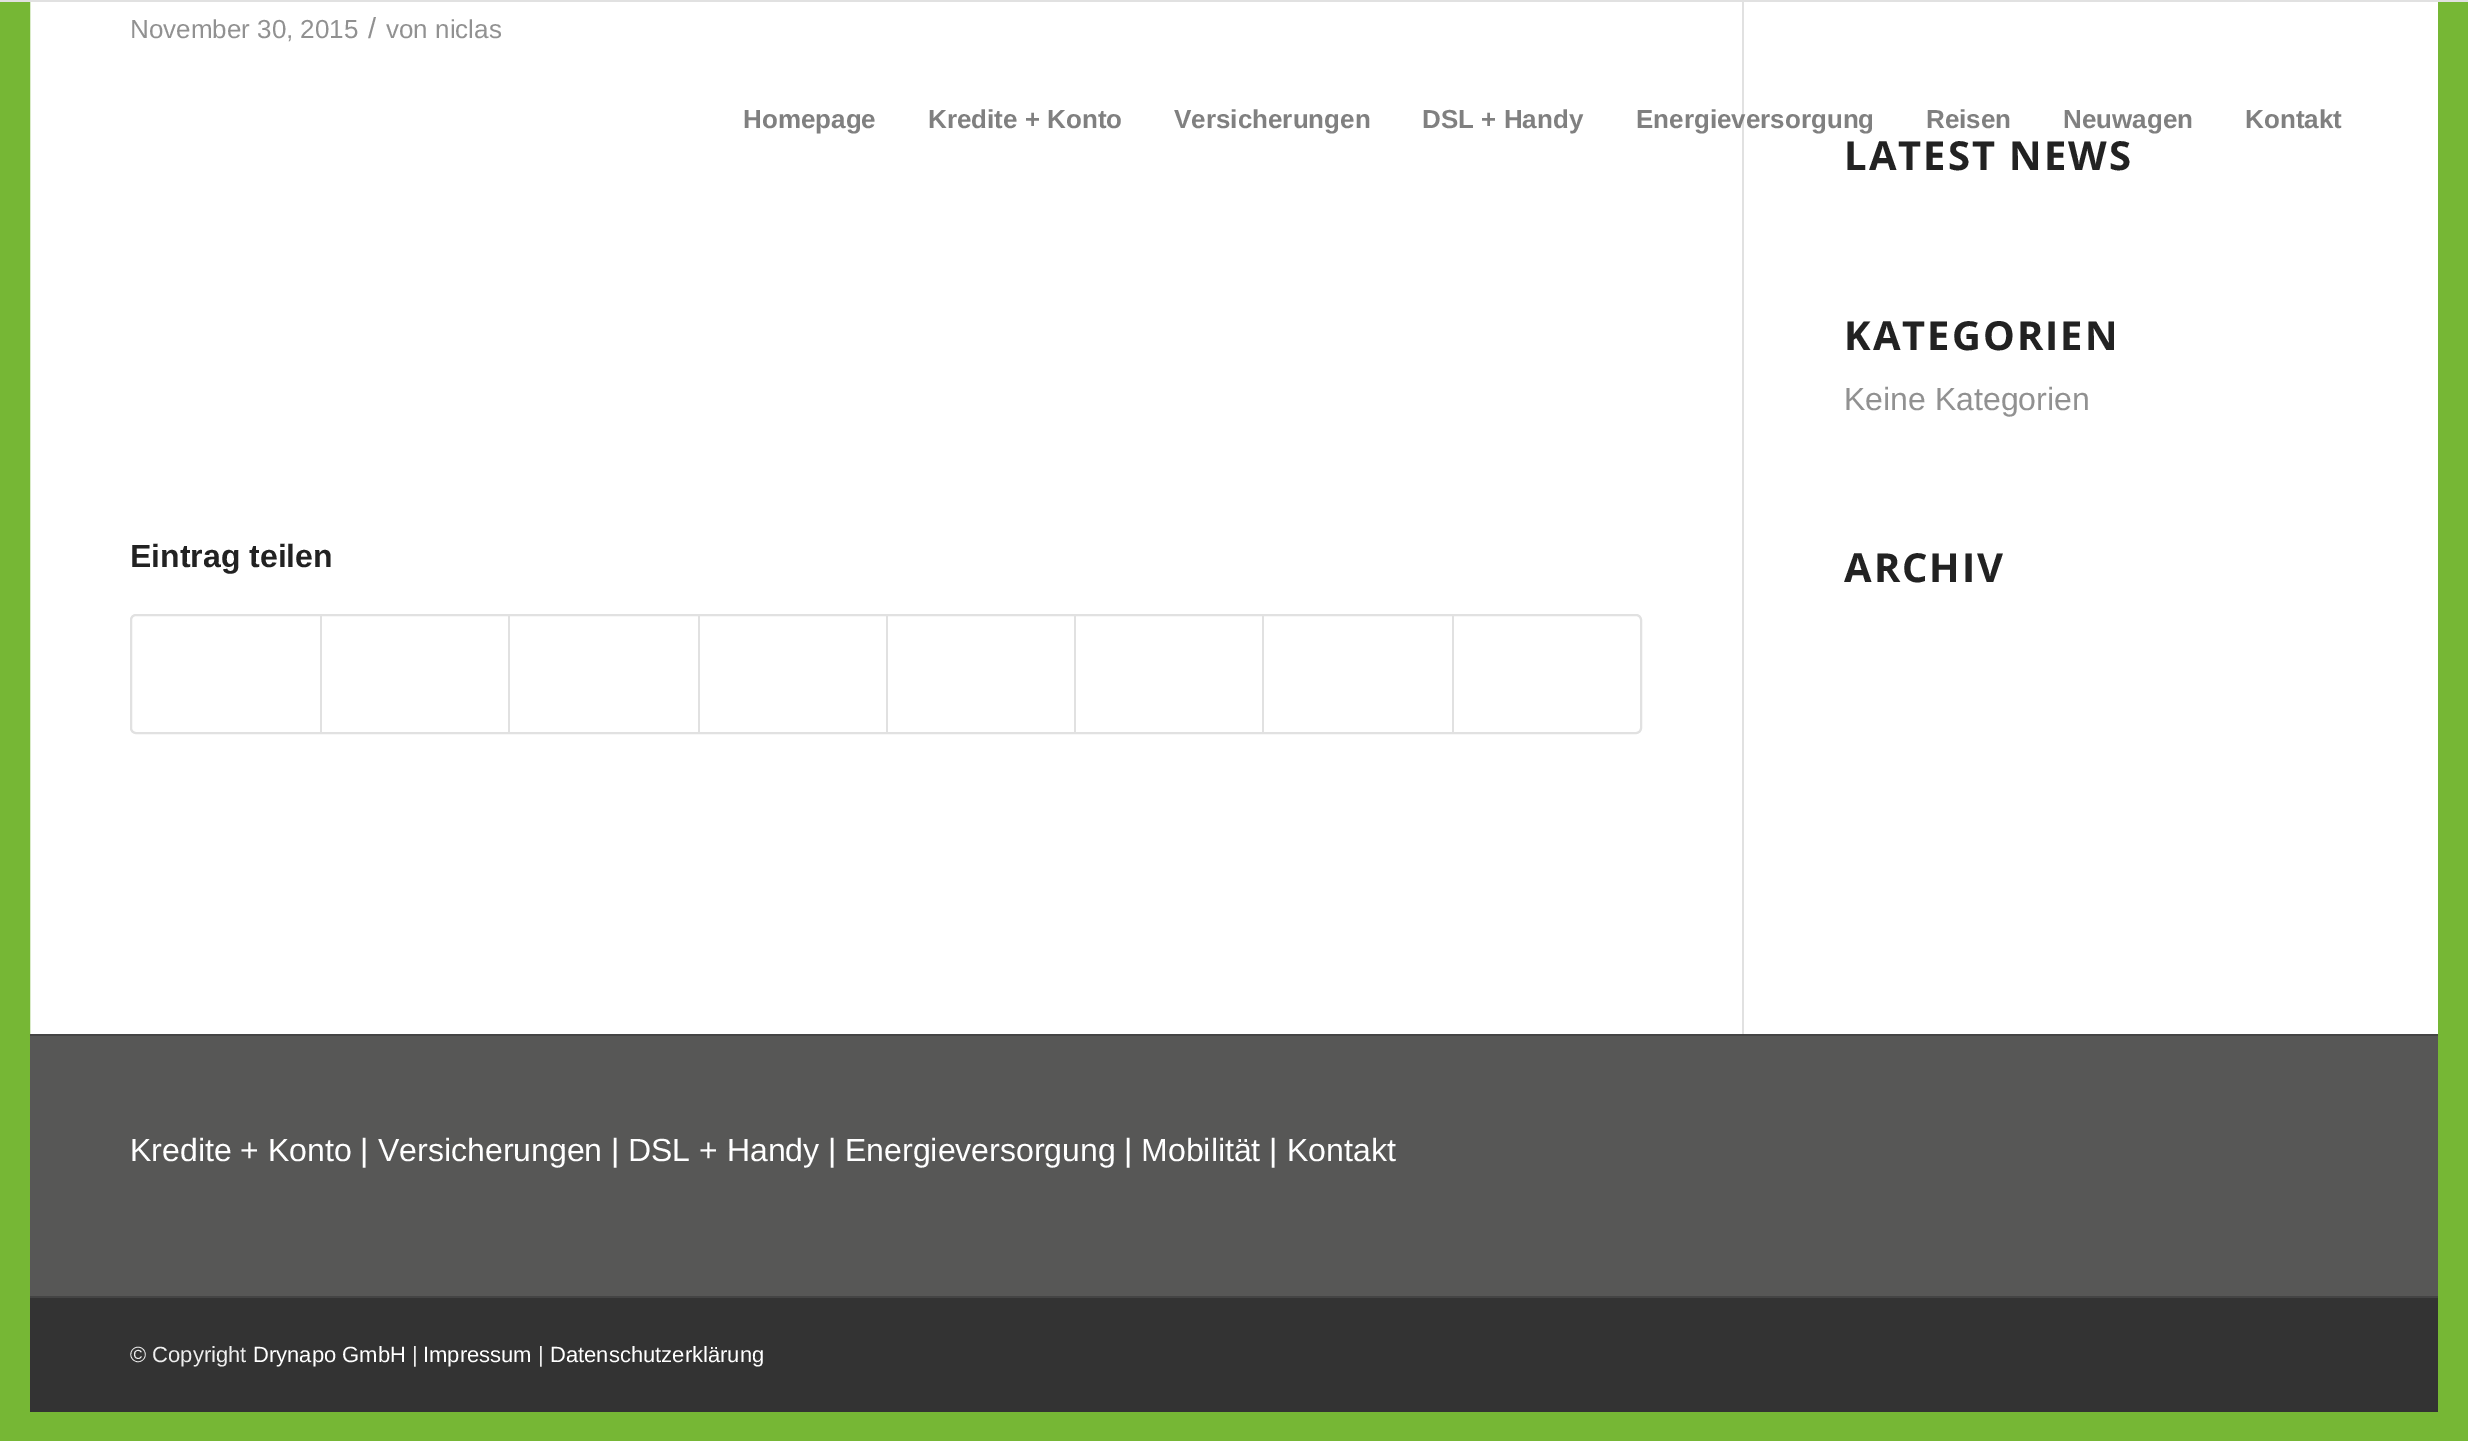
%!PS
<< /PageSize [2468 1441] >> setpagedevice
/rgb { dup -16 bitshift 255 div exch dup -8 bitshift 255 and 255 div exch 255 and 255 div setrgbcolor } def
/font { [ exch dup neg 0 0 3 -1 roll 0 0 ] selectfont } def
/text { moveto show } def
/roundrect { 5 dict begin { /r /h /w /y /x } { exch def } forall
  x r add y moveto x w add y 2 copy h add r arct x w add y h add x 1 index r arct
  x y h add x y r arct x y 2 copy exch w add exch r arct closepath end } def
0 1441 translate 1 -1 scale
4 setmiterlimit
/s1 { /LiberationSans-Regular 26 font 16#919191 rgb } def
/s2 { /LiberationSans-Regular 29 font 16#919191 rgb } def
/s3 { /LiberationSans-Bold 32 font 16#222222 rgb } def
/s4 { /LiberationSans-Regular 32 font 16#919191 rgb } def
/s5 { /LiberationSans-Regular 32 font 16#FFFFFF rgb } def
/s6 { /LiberationSans-Regular 22 font 16#EEEEEE rgb } def
/s7 { /LiberationSans-Regular 22 font 16#FFFFFF rgb } def
/s8 { /LiberationSans-Bold 26 font 16#808080 rgb } def
16#FFFFFF rgb
0 0 2468 1441 rectfill
16#76B735 rgb
30 setlinewidth
15 -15 2438 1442 rectstroke
16#E1E1E1 rgb
1742 0 2 1034 rectfill
s1
(November 30, 2015) 130 38 text
s2
(/) 368 38 text
s1
(von niclas) 386 38 text
s3
(Eintrag teilen) 130 567 text
16#E1E1E1 rgb
2 setlinewidth
131 615 1510 118 5 roundrect stroke
320 616 2 116 rectfill
508 616 2 116 rectfill
698 616 2 116 rectfill
886 616 2 116 rectfill
1074 616 2 116 rectfill
1262 616 2 116 rectfill
1452 616 2 116 rectfill
/OpenSans-Bold 40 font
16#222222 rgb
1844 170 moveto 2 0 (LATEST NEWS) ashow
1844 350 moveto 2 0 (KATEGORIEN) ashow
s4
(Keine Kategorien) 1844 410 text
/OpenSans-Bold 40 font
16#222222 rgb
1844 582 moveto 2 0 (ARCHIV) ashow
16#575756 rgb
30 1036 2408 260 rectfill
16#444444 rgb
30 1034 2408 2 rectfill
s5
(Kredite + Konto) 130 1161 text
(|) 360 1161 text
(Versicherungen) 378 1161 text
(|) 611 1161 text
(DSL + Handy) 628 1161 text
(|) 828 1161 text
(Energieversorgung) 845 1161 text
(| Mobilität |) 1124 1161 text
(Kontakt) 1287 1161 text
16#333333 rgb
30 1298 2408 114 rectfill
16#444444 rgb
30 1296 2408 2 rectfill
s6
(© Copyright) 130 1362 text
s7
(Drynapo GmbH) 253 1362 text
s6
(|) 412 1362 text
s7
(Impressum) 423 1362 text
s6
(|) 538 1362 text
s7
(Datenschutzerklärung) 550 1362 text
16#E1E1E1 rgb
0 0 2468 2 rectfill
s8
(Homepage) 743 128 text
(Kredite + Konto) 928 128 text
(Versicherungen) 1174 128 text
(DSL + Handy) 1422 128 text
(Energieversorgung) 1636 128 text
(Reisen) 1926 128 text
(Neuwagen) 2063 128 text
(Kontakt) 2245 128 text
showpage
